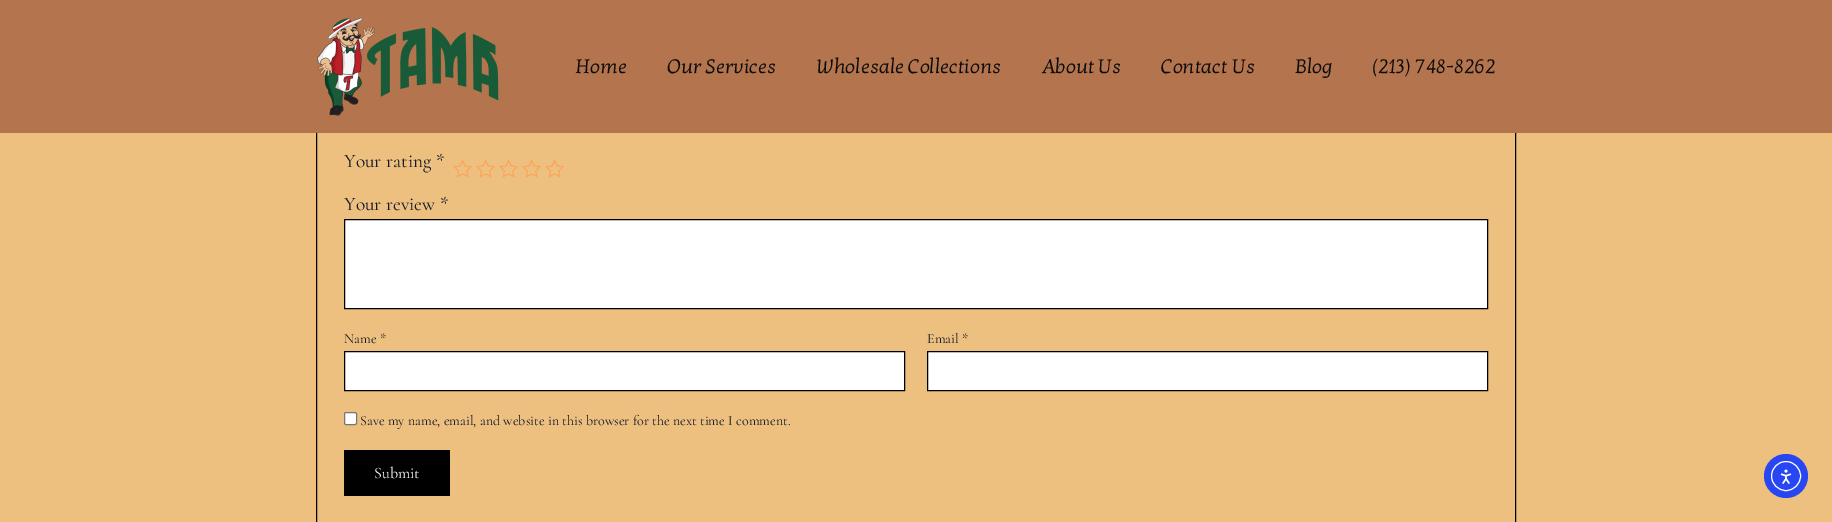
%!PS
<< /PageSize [1832 522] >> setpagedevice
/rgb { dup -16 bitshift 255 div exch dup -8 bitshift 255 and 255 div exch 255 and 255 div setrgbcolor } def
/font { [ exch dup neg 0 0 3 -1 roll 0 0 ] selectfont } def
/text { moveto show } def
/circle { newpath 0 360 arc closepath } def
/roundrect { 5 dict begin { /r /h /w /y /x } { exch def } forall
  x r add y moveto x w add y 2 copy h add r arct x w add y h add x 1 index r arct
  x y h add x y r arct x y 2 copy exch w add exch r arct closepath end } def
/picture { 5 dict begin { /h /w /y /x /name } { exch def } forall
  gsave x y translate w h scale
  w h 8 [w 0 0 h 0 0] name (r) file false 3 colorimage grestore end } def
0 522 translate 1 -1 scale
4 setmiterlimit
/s1 { /KottaOne-Regular 20 font 16#0C0C0C rgb } def
/s2 { /Cormorant-Regular 19.25 font 16#111827 rgb } def
/s3 { /Cormorant-Regular 14 font 16#111827 rgb } def
/s4 { /Cormorant-Regular 16 font 16#FFFFFF rgb } def
16#EDC080 rgb
0 0 1832 522 rectfill
16#000000 rgb
316.5 51.5 1199 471 rectstroke
16#B3744E rgb
0 0 1832 133 rectfill
(pic1.raw) 317 18 182 98 picture
s1
(Home) 575 73 text
(Our Services) 667 73 text
(Wholesale Collections) 816 73 text
(About Us) 1042 73 text
(Contact Us) 1161 73 text
(Blog) 1295 73 text
(\(213\) 748-8262) 1372 73 text
s2
(Your rating *) 344 167 text
(pic2.raw) 453 159 19 19 picture
(pic2.raw) 476 159 19 19 picture
(pic2.raw) 499 159 19 19 picture
(pic2.raw) 522 159 19 19 picture
(pic2.raw) 545 159 19 19 picture
(Your review *) 344 210 text
16#FFFFFF rgb
344.5 219.5 moveto 1487.5 219.5 lineto 1487.5 308.5 lineto 344.5 308.5 lineto closepath gsave fill grestore
16#000000 rgb
stroke
s3
(Name *) 344 343 text
16#FFFFFF rgb
344.5 351.5 moveto 904.5 351.5 lineto 904.5 390.5 lineto 344.5 390.5 lineto closepath gsave fill grestore
16#000000 rgb
stroke
s3
(Email *) 927 343 text
16#FFFFFF rgb
927.5 351.5 moveto 1487.5 351.5 lineto 1487.5 390.5 lineto 927.5 390.5 lineto closepath gsave fill grestore
16#000000 rgb
stroke
16#FFFFFF rgb
344.5 412.5 12 12 1.5 roundrect gsave fill grestore
16#767676 rgb
stroke
s3
(Save my name, email, and website in this browser for the next time I comment.) 360 425 text
16#000000 rgb
344 450 106 46 rectfill
s4
(Submit) 374 478 text
16#2847F3 rgb
1786 476 22 circle fill
16#FFFFFF rgb
1786 476 14.5 circle stroke
(pic3.raw) 1780 469 12 15 picture
showpage
